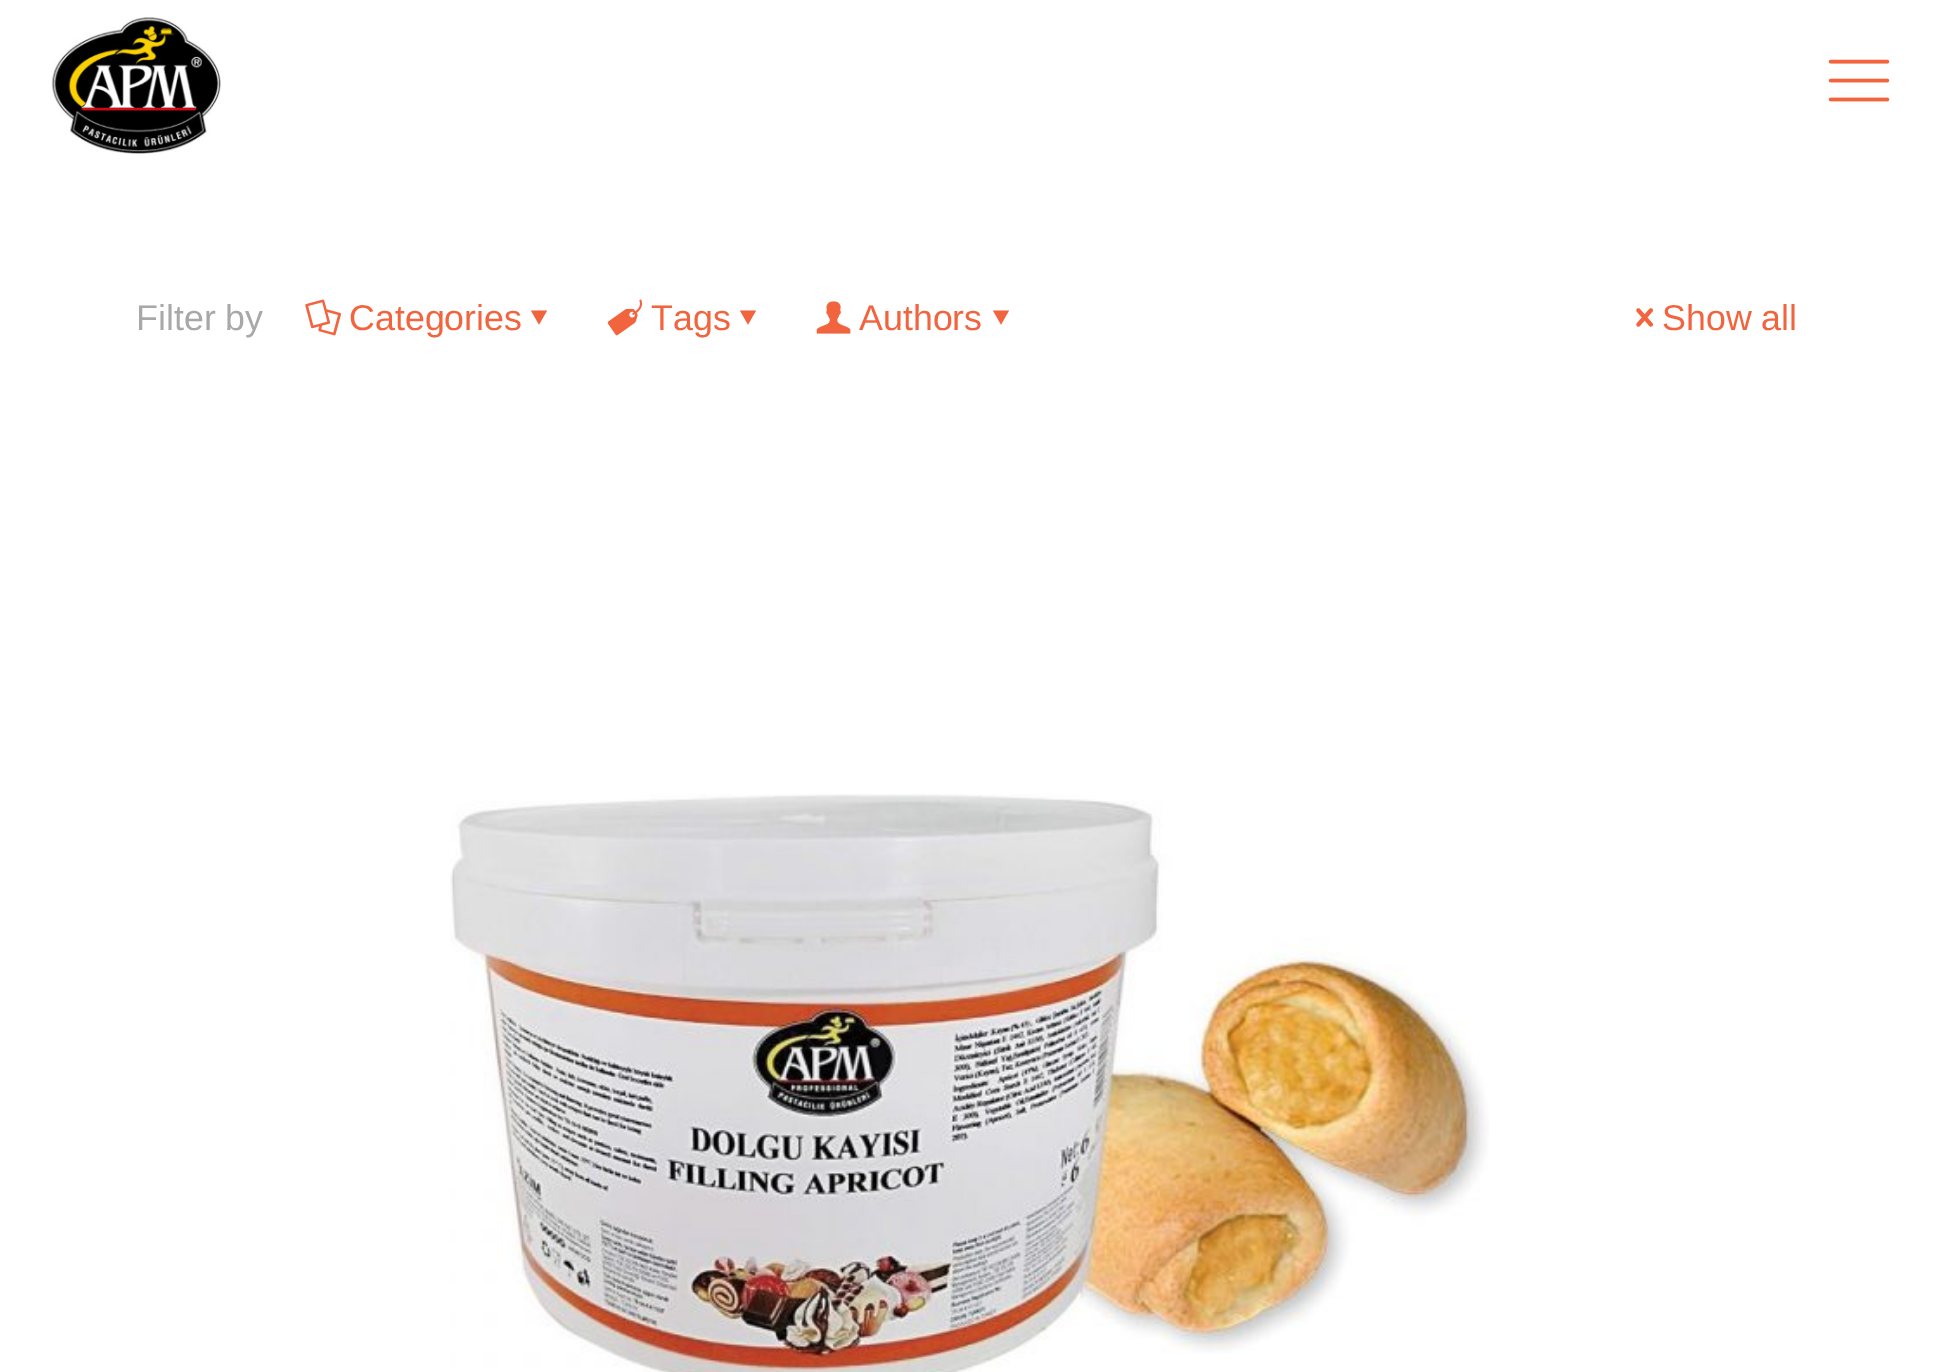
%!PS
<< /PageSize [1933 1372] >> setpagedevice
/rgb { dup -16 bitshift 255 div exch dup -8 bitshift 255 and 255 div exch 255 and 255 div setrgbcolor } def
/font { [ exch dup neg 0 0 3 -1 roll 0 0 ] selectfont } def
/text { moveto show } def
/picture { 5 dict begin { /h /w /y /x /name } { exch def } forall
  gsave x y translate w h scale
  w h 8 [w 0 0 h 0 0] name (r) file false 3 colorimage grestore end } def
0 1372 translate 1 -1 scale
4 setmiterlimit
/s1 { /LiberationSans-Regular 35.75 font 16#A8A8A8 rgb } def
/s2 { /LiberationSans-Regular 35.75 font 16#F2643D rgb } def
16#FFFFFF rgb
0 0 1933 1372 rectfill
(pic1.raw) 51 17 170 137 picture
(pic2.raw) 1828 59 62 43 picture
s1
(Filter by) 136 330 text
(pic3.raw) 305 299 36 37 picture
s2
(Categories) 349 330 text
547 310.5 moveto 539 324.5 lineto 531 310.5 lineto closepath fill
(pic4.raw) 607 299 36 37 picture
(Tags) 651 330 text
756 310.5 moveto 748 324.5 lineto 740 310.5 lineto closepath fill
(pic5.raw) 816 301 35 33 picture
(Authors) 859 330 text
1009 310.5 moveto 1001 324.5 lineto 993 310.5 lineto closepath fill
(pic6.raw) 1636 308 17 19 picture
(Show all) 1662 330 text
(pic7.raw) 450 794 1039 578 picture
showpage
